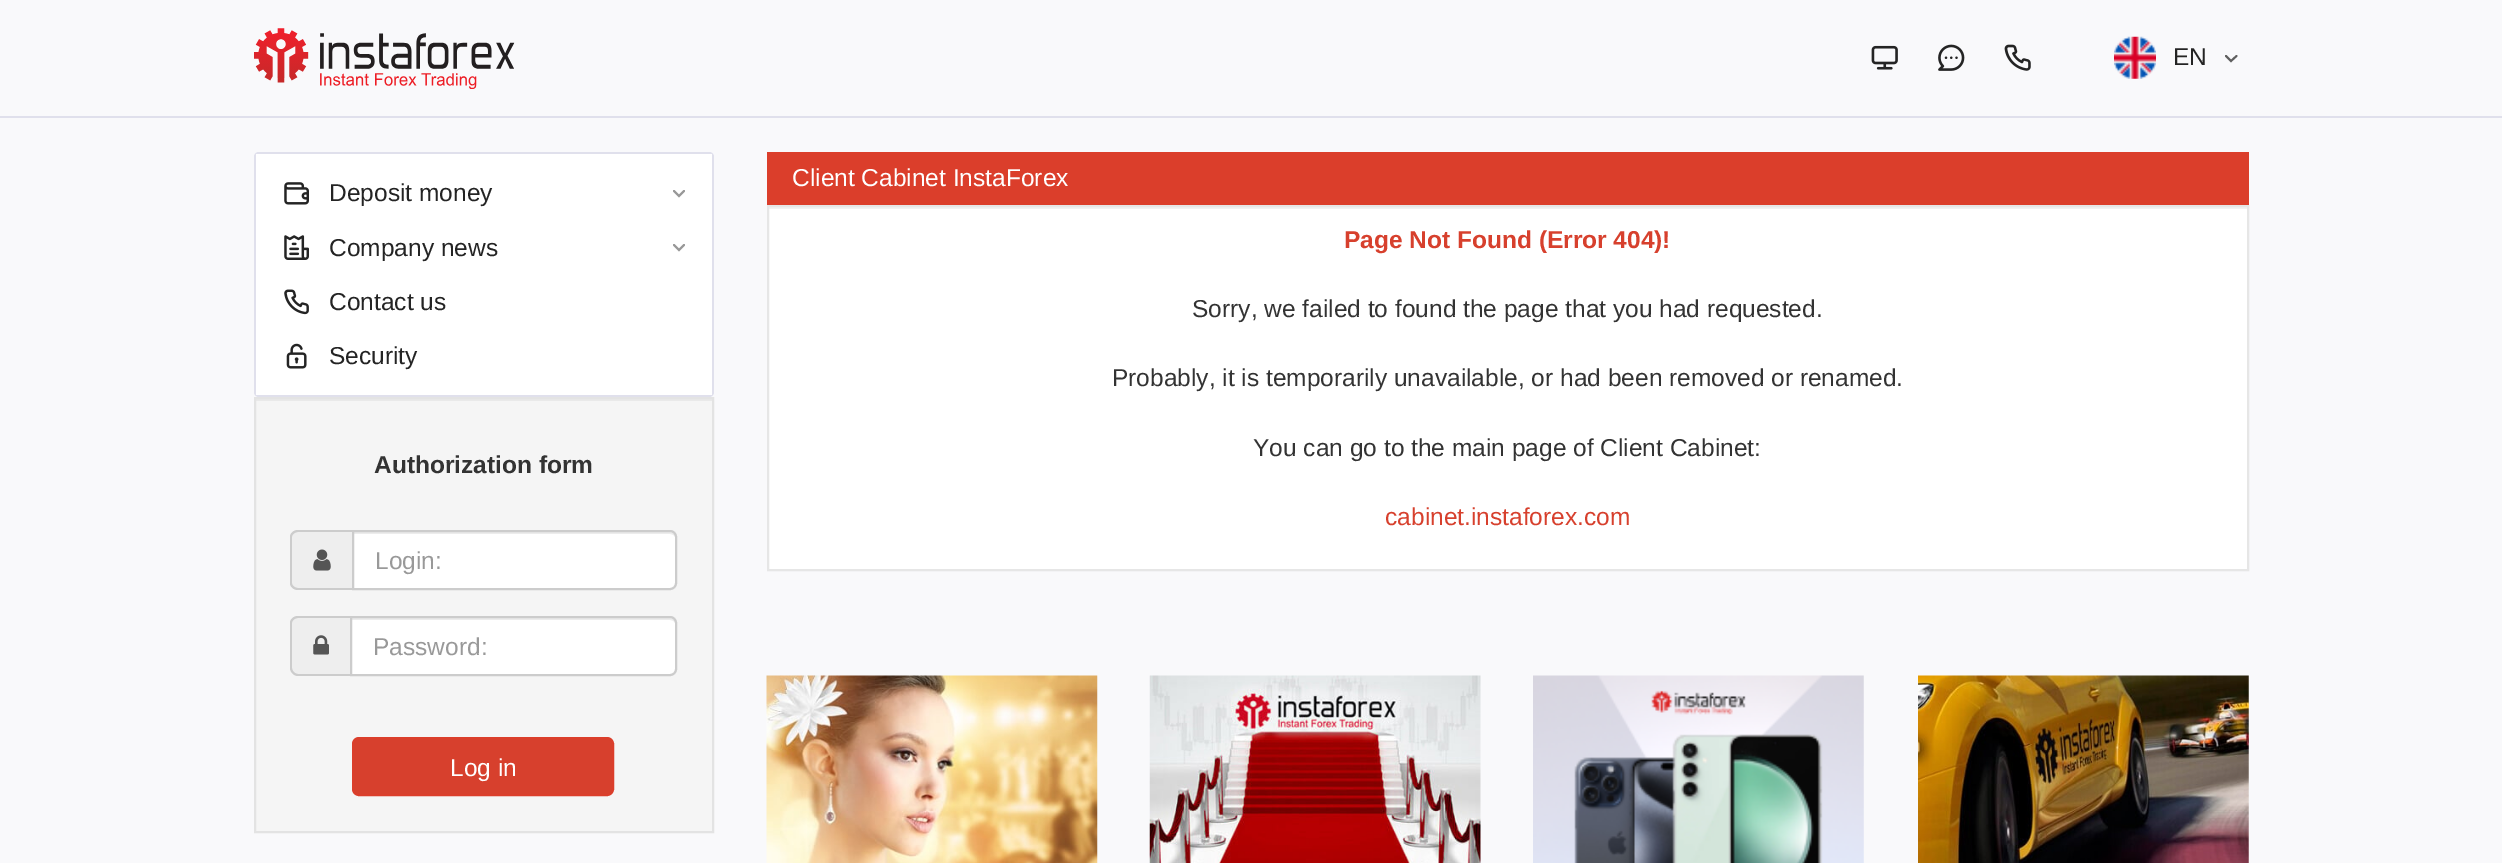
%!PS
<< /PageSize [2502 863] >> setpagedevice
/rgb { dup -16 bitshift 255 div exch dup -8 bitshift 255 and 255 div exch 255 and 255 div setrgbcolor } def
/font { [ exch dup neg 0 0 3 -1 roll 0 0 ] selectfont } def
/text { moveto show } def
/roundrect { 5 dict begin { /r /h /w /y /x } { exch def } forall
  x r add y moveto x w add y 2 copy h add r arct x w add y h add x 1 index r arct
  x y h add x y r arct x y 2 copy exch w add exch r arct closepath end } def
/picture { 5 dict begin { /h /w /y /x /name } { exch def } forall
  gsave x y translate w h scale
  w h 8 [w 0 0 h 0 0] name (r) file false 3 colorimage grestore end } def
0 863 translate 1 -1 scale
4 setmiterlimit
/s1 { /LiberationSans-Regular 24.5 font 16#242424 rgb } def
/s2 { /LiberationSans-Bold 24.5 font 16#333333 rgb } def
/s3 { /LiberationSans-Regular 24.5 font 16#999999 rgb } def
/s4 { /LiberationSans-Regular 24.5 font 16#FFFFFF rgb } def
/s5 { /LiberationSans-Bold 24.5 font 16#D7402D rgb } def
/s6 { /LiberationSans-Regular 24.5 font 16#333333 rgb } def
/s7 { /LiberationSans-Regular 24.5 font 16#D7402D rgb } def
16#F9F9FB rgb
0 0 2502 863 rectfill
16#E0E0EC rgb
0 116 2502 2 rectfill
(pic1.raw) 254 28 261 61 picture
(pic2.raw) 1871 45 27 25 picture
(pic3.raw) 1938 44 27 27 picture
(pic4.raw) 2004 44 27 27 picture
(pic5.raw) 2114 36 42 43 picture
s1
(EN) 2173 65 text
16#5F5F5F rgb
1.9 setlinewidth
1 setlinecap
2236.5 56 moveto 2231 61 lineto 2226 56 lineto stroke
16#FFFFFF rgb
254 152 460 245 5 roundrect fill
16#E0E0EC rgb
259 152 moveto 256 152 254 154 254 157 curveto 254 392 lineto 254 395 256 397 259 397 curveto 709 397 lineto 712 397 714 395 714 392 curveto 714 157 lineto 714 154 712 152 709 152 curveto closepath 256 154 moveto 256 395 lineto 712 395 lineto 712 154 lineto closepath eofill
(pic6.raw) 284 182 25 23 picture
s1
(Deposit money) 329 201 text
16#989898 rgb
684 191 moveto 679 196 lineto 674 191 lineto stroke
(pic7.raw) 284 235 25 25 picture
s1
(Company news) 329 256 text
16#989898 rgb
684 245 moveto 679 250 lineto 674 245 lineto stroke
(pic8.raw) 284 289 25 26 picture
s1
(Contact us) 329 310 text
(pic9.raw) 286 343 21 26 picture
(Security) 329 364 text
16#F5F5F5 rgb
256 401 456 430 rectfill
16#E9E9E9 rgb
256 399 456 2 rectfill
16#E3E3E3 rgb
2 setlinewidth
0 setlinecap
255 398 458 434 rectstroke
s2
(Authorization form) 374 473 text
16#EEEEEE rgb
298 530 moveto 352 530 lineto 352 590 lineto 298 590 lineto 294 590 291 587 291 583 curveto 291 537 lineto 291 533 294 530 298 530 curveto closepath fill
16#CCCCCC rgb
298 530 moveto 352 530 lineto 352 590 lineto 298 590 lineto 294 590 290 587 290 583 curveto 290 537 lineto 290 533 294 530 298 530 curveto closepath 298 532 moveto 352 532 lineto 352 588 lineto 298 588 lineto 295 588 292 586 292 583 curveto 292 537 lineto 292 534 295 532 298 532 curveto closepath eofill
(pic10.raw) 313 549 18 22 picture
16#FFFFFF rgb
352 530 moveto 670 530 lineto 674 530 677 533 677 537 curveto 677 583 lineto 677 587 674 590 670 590 curveto 352 590 lineto closepath fill
16#ECECEC rgb
354 534 moveto 670 534 lineto 673 534 676 536 676 539 curveto 676 537 lineto 676 534 674 532 671 532 curveto 354 532 lineto closepath fill
16#CCCCCC rgb
353 531 moveto 670 531 lineto 673.5 531 676 533.5 676 537 curveto 676 583 lineto 676 586.5 673.5 589 670 589 curveto 353 589 lineto closepath stroke
s3
(Login:) 375 569 text
16#EEEEEE rgb
298 616 moveto 350 616 lineto 350 676 lineto 298 676 lineto 294 676 291 673 291 669 curveto 291 623 lineto 291 619 294 616 298 616 curveto closepath fill
16#CCCCCC rgb
298 616 moveto 350 616 lineto 350 676 lineto 298 676 lineto 294 676 290 672 290 668 curveto 290 623 lineto 290 619 294 616 298 616 curveto closepath 298 618 moveto 350 618 lineto 350 674 lineto 298 674 lineto 295 674 292 671 292 668 curveto 292 623 lineto 292 620 295 618 298 618 curveto closepath eofill
(pic11.raw) 313 635 16 20 picture
16#FFFFFF rgb
350 616 moveto 670 616 lineto 674 616 677 619 677 623 curveto 677 669 lineto 677 673 674 676 670 676 curveto 350 676 lineto closepath fill
16#ECECEC rgb
352 620 moveto 670 620 lineto 673 620 676 622 676 625 curveto 676 623 lineto 676 620 674 618 671 618 curveto 352 618 lineto closepath fill
16#CCCCCC rgb
351 617 moveto 670 617 lineto 673.5 617 676 619.5 676 623 curveto 676 669 lineto 676 672.5 673.5 675 670 675 curveto 351 675 lineto closepath stroke
s3
(Password:) 373 655 text
16#D7402D rgb
353 738 260 57 6 roundrect gsave fill grestore
16#DB3E2B rgb
stroke
s4
(Log in) 450 776 text
16#DB3E2B rgb
767 152 1482 53 rectfill
s4
(Client Cabinet InstaForex) 792 186 text
769 209 1478 360 rectfill
16#F2F2F2 rgb
768 207 1479 2 rectfill
16#E6E6E6 rgb
768 206 1480 364 rectstroke
s5
(Page Not Found \(Error 404\)!) 1344 248 text
s6
(Sorry, we failed to found the page that you had requested.) 1192 317 text
(Probably, it is temporarily unavailable, or had been removed or renamed.) 1112 386 text
(You can go to the main page of Client Cabinet:) 1253 456 text
s7
(cabinet.instaforex.com) 1385 525 text
(pic12.raw) 766 675 332 188 picture
(pic13.raw) 1149 675 332 188 picture
(pic14.raw) 1533 675 331 188 picture
(pic15.raw) 1918 675 331 188 picture
showpage
